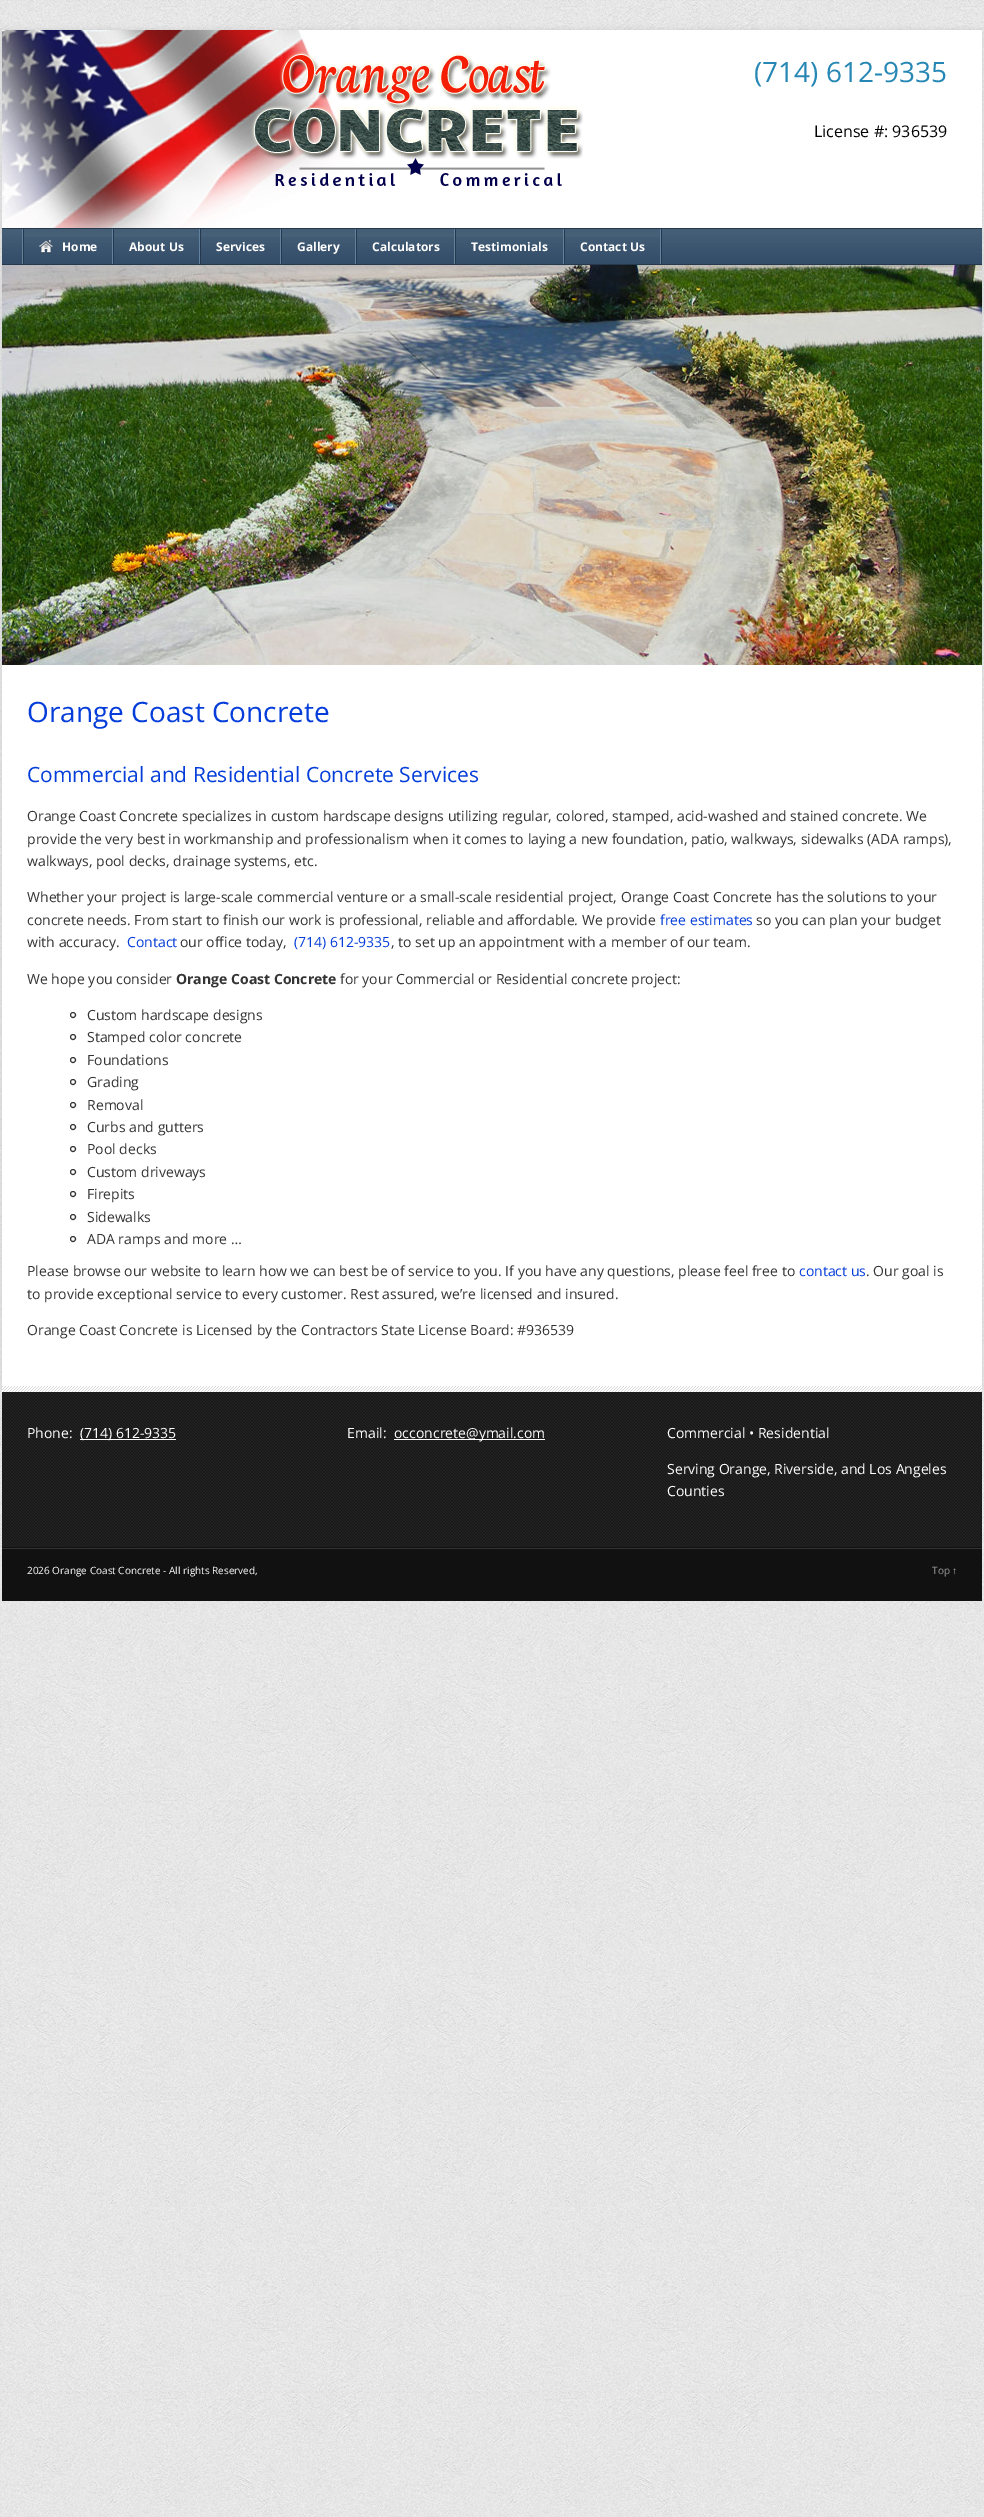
%!PS
<< /PageSize [984 2517] /PageUsesTransparency true >> setpagedevice
/rgb { dup -16 bitshift 255 div exch dup -8 bitshift 255 and 255 div exch 255 and 255 div setrgbcolor } def
/font { [ exch dup neg 0 0 3 -1 roll 0 0 ] selectfont } def
/text { moveto show } def
/alpha { dup .setfillconstantalpha .setstrokeconstantalpha } def
/circle { newpath 0 360 arc closepath } def
/roundrect { 5 dict begin { /r /h /w /y /x } { exch def } forall
  x r add y moveto x w add y 2 copy h add r arct x w add y h add x 1 index r arct
  x y h add x y r arct x y 2 copy exch w add exch r arct closepath end } def
/shadow { 12 dict begin { /a /b /q /h /w /y /x } { exch def } forall gsave /was 0 def
  9 -2 -9 { dup b mul 4 div /e exch def 1 sub .425 mul 2.718 exch exp 1 add a .99 .min exch div /now exch def
    1 1 now sub 1 was sub div sub alpha /was now def
    w h .min e 2 mul add 0 gt { x e sub y e sub w e 2 mul add h e 2 mul add
      q e add b .6 mul add w h .min 2 div e add .min 0 .max roundrect fill } if } for grestore end } def
/picture { 5 dict begin { /h /w /y /x /name } { exch def } forall
  gsave x y translate w h scale
  w h 8 [w 0 0 h 0 0] name (r) file false 3 colorimage grestore end } def
0 .pushpdf14devicefilter
0 2517 translate 1 -1 scale
4 setmiterlimit
/s1 { /OpenSans-Regular 28 font 16#2687B4 rgb } def
/s2 { /OpenSans-Regular 16 font 16#000000 rgb } def
/s3 { /OpenSans-Bold 12 font 16#FFFFFF rgb } def
/s4 { /OpenSans-Regular 28 font 16#043DD9 rgb } def
/s5 { /OpenSans-Regular 21 font 16#043DD9 rgb } def
/s6 { /OpenSans-Regular 14 font 16#333333 rgb } def
/s7 { /OpenSans-Regular 14 font 16#043DD9 rgb } def
/s8 { /OpenSans-Bold 14 font 16#333333 rgb } def
/s9 { /OpenSans-Regular 14 font 16#FFFFFF rgb } def
/s10 { /OpenSans-Regular 10 font 16#FFFFFF rgb } def
/s11 { /OpenSans-Regular 10 font 16#999999 rgb } def
/s12 { /LiberationSerif-Regular 10 font 16#999999 rgb } def
16#FFFFFF rgb
0 0 984 2517 rectfill
(pic1.raw) 0 0 984 2517 picture
16#000000 rgb
2 30 980 1356 0 3 0.1 shadow
16#FFFFFF rgb
2 30 980 1362 rectfill
(pic2.raw) 2 30 581 198 picture
s1
(\(714\) 612-9335) 754 82 text
s2
(License #: 936539) 814 137 text
(pic3.raw) 2 229 980 35 picture
16#26384C rgb
2 228 980 1 rectfill
2 264 980 1 rectfill
661 229 1 35 rectfill
16#6381A1 rgb
22 229 1 35 rectfill
16#466078 rgb
24 233 88 4 rectfill
(pic4.raw) 24 237 88 27 picture
16#6381A1 rgb
112 229 1 35 rectfill
16#26384C rgb
23 229 1 35 rectfill
(pic5.raw) 38 240 15 14 picture
s3
(Home) 62 251 text
16#466078 rgb
114 233 85 4 rectfill
(pic6.raw) 114 237 85 27 picture
16#6381A1 rgb
199 229 1 35 rectfill
16#26384C rgb
113 229 1 35 rectfill
s3
(About Us) 129 251 text
16#466078 rgb
201 233 79 4 rectfill
(pic7.raw) 201 237 79 27 picture
16#6381A1 rgb
280 229 1 35 rectfill
16#26384C rgb
200 229 1 35 rectfill
s3
(Services) 216 251 text
16#466078 rgb
282 233 73 4 rectfill
(pic8.raw) 282 237 73 27 picture
16#6381A1 rgb
355 229 1 35 rectfill
16#26384C rgb
281 229 1 35 rectfill
s3
(Gallery) 297 251 text
16#466078 rgb
357 233 97 4 rectfill
(pic9.raw) 357 237 97 27 picture
16#6381A1 rgb
454 229 1 35 rectfill
16#26384C rgb
356 229 1 35 rectfill
s3
(Calculators) 372 251 text
16#466078 rgb
456 233 107 4 rectfill
(pic10.raw) 456 237 107 27 picture
16#6381A1 rgb
563 229 1 35 rectfill
16#26384C rgb
455 229 1 35 rectfill
s3
(Testimonials) 471 251 text
16#466078 rgb
565 233 95 4 rectfill
(pic11.raw) 565 237 95 27 picture
16#6381A1 rgb
660 229 1 35 rectfill
16#26384C rgb
564 229 1 35 rectfill
s3
(Contact Us) 580 251 text
(pic12.raw) 2 265 980 400 picture
s4
(Orange Coast Concrete) 27 722 text
s5
(Commercial and Residential Concrete Services) 27 782 text
s6
(Orange Coast Concrete specializes in custom hardscape designs utilizing regular, colored, stamped, acid-washed and stained concrete. We) 27 821 text
(provide the very best in workmanship and professionalism when it comes to laying a new foundation, patio, walkways, sidewalks \(ADA ramps\),) 27 844 text
(walkways, pool decks, drainage systems, etc.) 27 866 text
(Whether your project is large-scale commercial venture or a small-scale residential project, Orange Coast Concrete has the solutions to your) 27 902 text
(concrete needs. From start to finish our work is professional, reliable and affordable. We provide) 27 925 text
s7
(free estimates) 660 925 text
s6
(so you can plan your budget) 756 925 text
(with accuracy.) 27 947 text
s7
(Contact) 127 947 text
s6
(our office today,) 180 947 text
s7
(\(714\) 612-9335) 294 947 text
s6
(, to set up an appointment with a member of our team.) 391 947 text
(We hope you consider) 27 984 text
s8
(Orange Coast Concrete) 176 984 text
s6
(for your Commercial or Residential concrete project:) 340 984 text
73 1015 2.5 circle stroke
(Custom hardscape designs) 87 1020 text
73 1037 2.5 circle stroke
(Stamped color concrete) 87 1042 text
73 1060 2.5 circle stroke
(Foundations) 87 1065 text
73 1082 2.5 circle stroke
(Grading) 87 1087 text
73 1105 2.5 circle stroke
(Removal) 87 1110 text
73 1127 2.5 circle stroke
(Curbs and gutters) 87 1132 text
73 1149 2.5 circle stroke
(Pool decks) 87 1154 text
73 1172 2.5 circle stroke
(Custom driveways) 87 1177 text
73 1194 2.5 circle stroke
(Firepits) 87 1199 text
73 1217 2.5 circle stroke
(Sidewalks) 87 1222 text
73 1239 2.5 circle stroke
(ADA ramps and more …) 87 1244 text
(Please browse our website to learn how we can best be of service to you. If you have any questions, please feel free to) 27 1276 text
s7
(contact us) 799 1276 text
s6
(. Our goal is) 866 1276 text
(to provide exceptional service to every customer. Rest assured, we’re licensed and insured.) 27 1299 text
(Orange Coast Concrete is Licensed by the Contractors State License Board: #936539) 27 1335 text
(pic13.raw) 2 1386 980 6 picture
16#212121 rgb
2 1392 980 155 rectfill
(pic14.raw) 2 1392 980 155 picture
16#111111 rgb
2 1547 980 1 rectfill
s9
(Phone:) 27 1438 text
80 1439 96 1 rectfill
(\(714\) 612-9335) 80 1438 text
(Email:) 347 1438 text
394 1439 151 1 rectfill
(occoncrete@ymail.com) 394 1438 text
(Commercial • Residential) 667 1438 text
(Serving Orange, Riverside, and Los Angeles) 667 1474 text
(Counties) 667 1496 text
16#111111 rgb
2 1549 980 52 rectfill
16#333333 rgb
2 1548 980 1 rectfill
s10
(2026 Orange Coast Concrete - All rights Reserved,) 27 1574 text
s11
(Top) 932 1574 text
s12
(↑) 952 1574 text
.poppdf14devicefilter showpage
